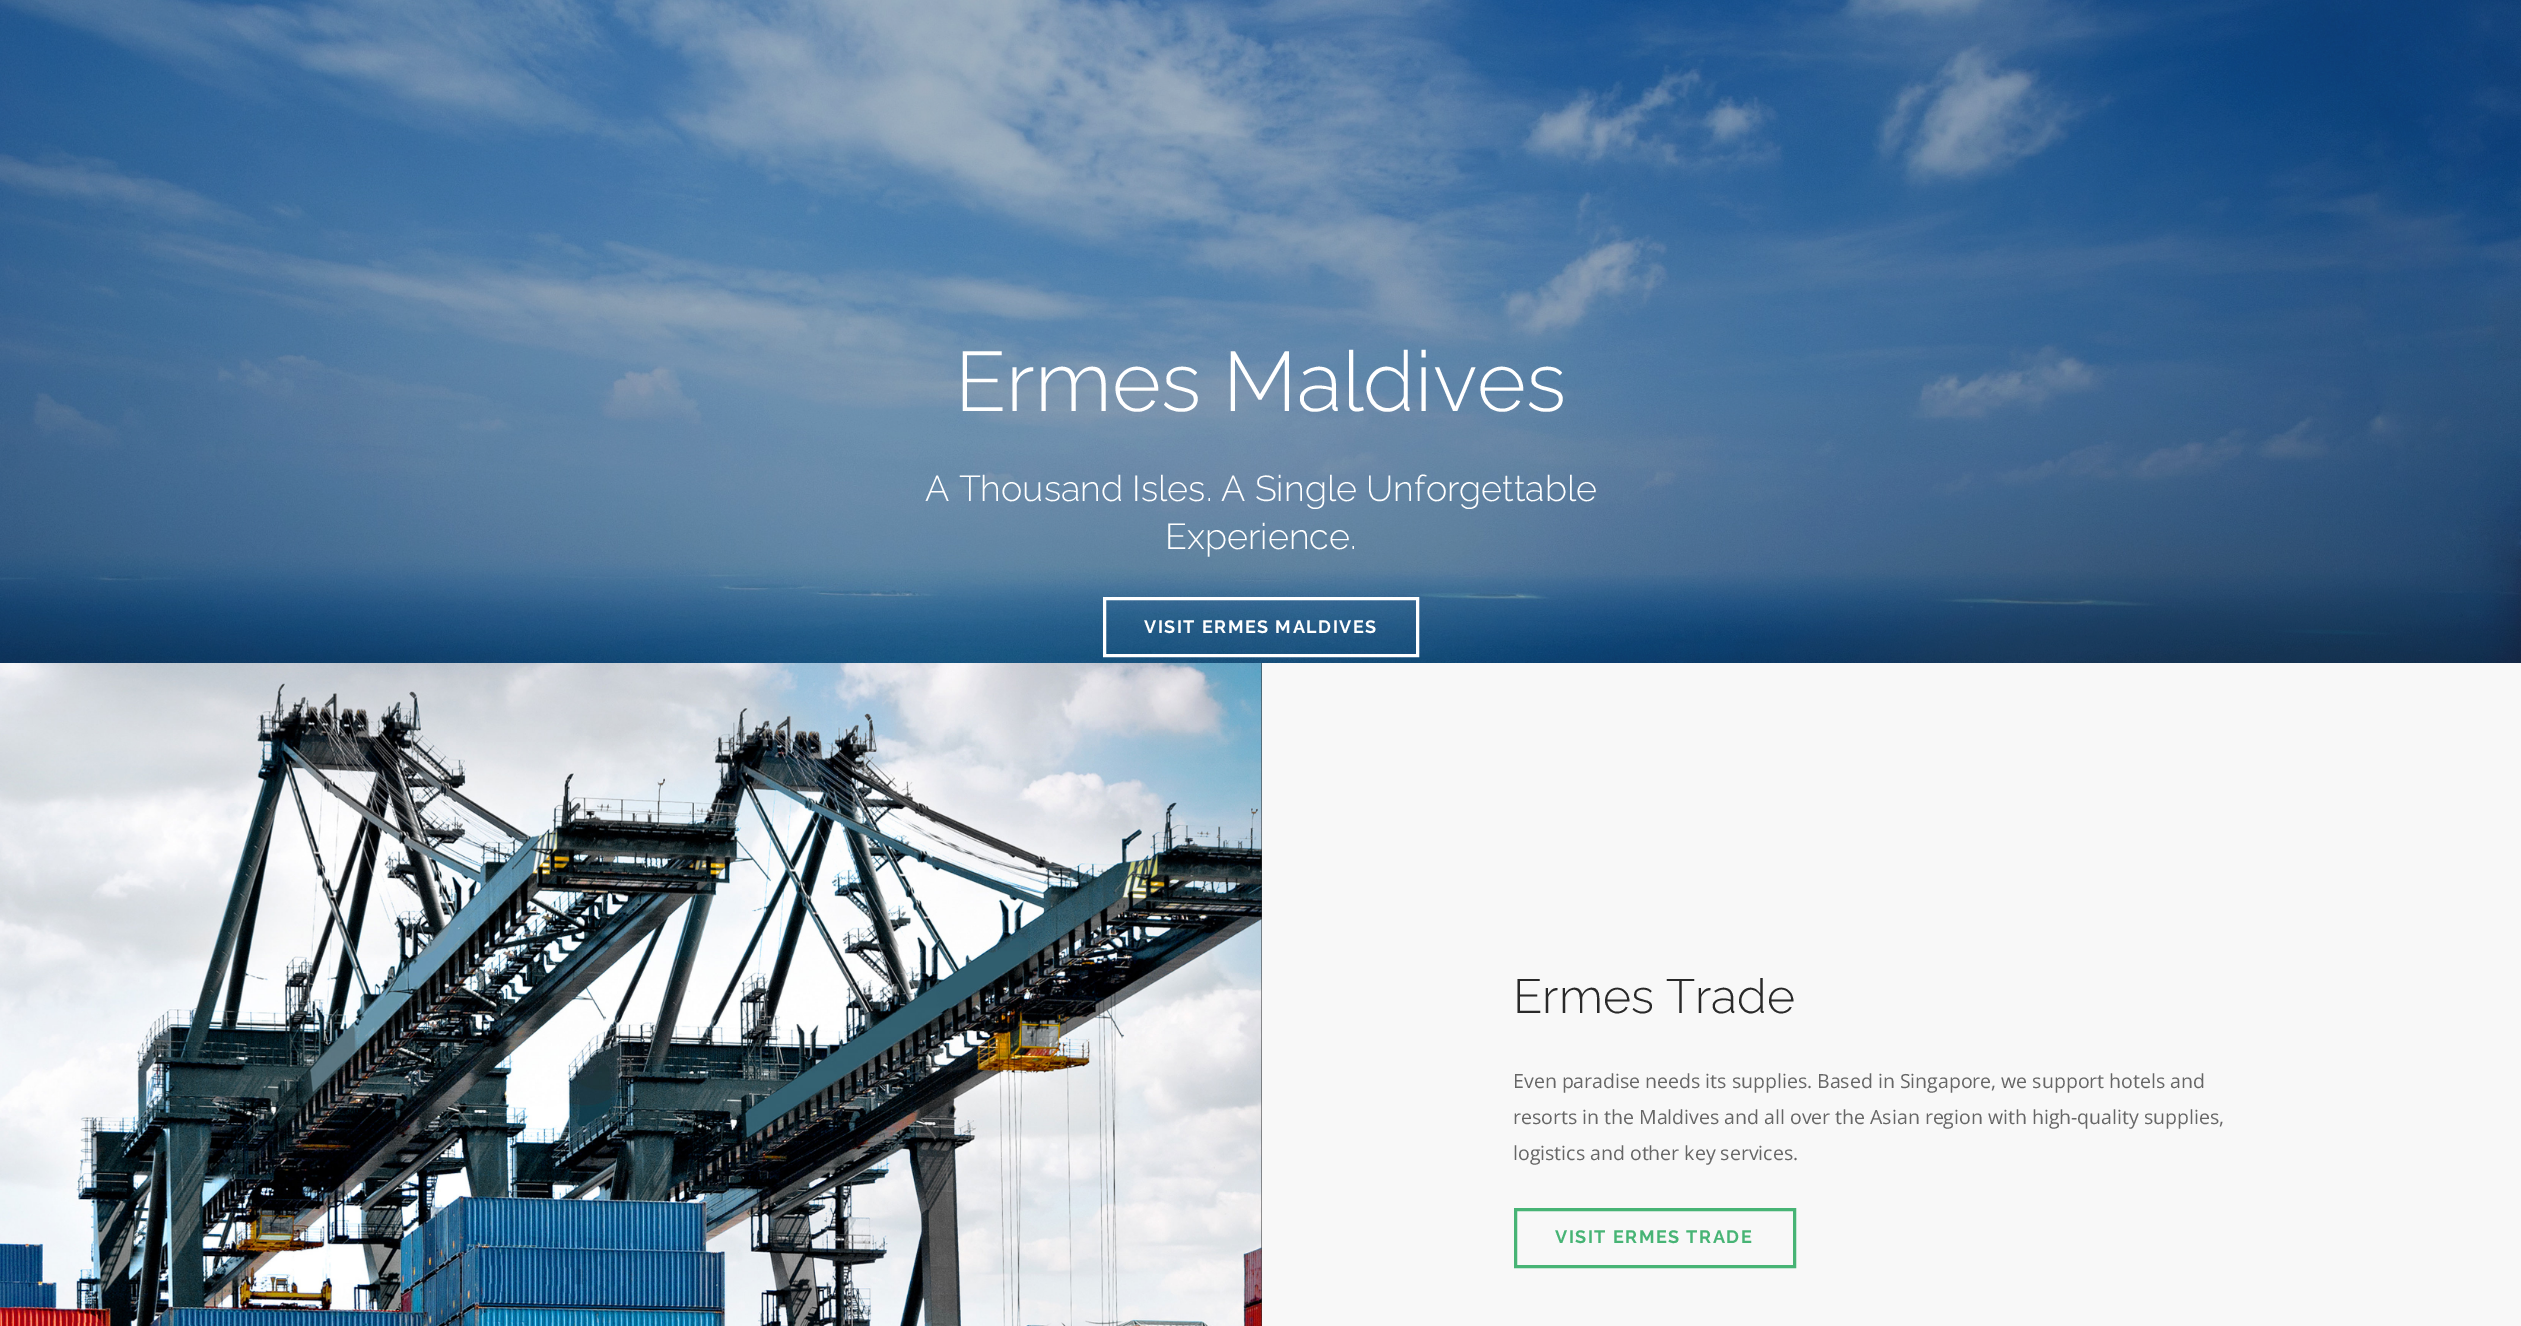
%!PS
<< /PageSize [2521 1326] >> setpagedevice
/rgb { dup -16 bitshift 255 div exch dup -8 bitshift 255 and 255 div exch 255 and 255 div setrgbcolor } def
/font { [ exch dup neg 0 0 3 -1 roll 0 0 ] selectfont } def
/text { moveto show } def
/picture { 5 dict begin { /h /w /y /x /name } { exch def } forall
  gsave x y translate w h scale
  w h 8 [w 0 0 h 0 0] name (r) file false 3 colorimage grestore end } def
0 1326 translate 1 -1 scale
4 setmiterlimit
/s1 { /Raleway-Light 84 font 16#FFFFFF rgb } def
/s2 { /Raleway-Light 36 font 16#FFFFFF rgb } def
/s3 { /Raleway-Light 48 font 16#292929 rgb } def
/s4 { /OpenSans-Regular 19.5 font 16#666666 rgb } def
16#F8F8F8 rgb
0 0 2521 1326 rectfill
(pic1.raw) 0 0 2521 663 picture
s1
(Ermes Maldives) 955 411 text
s2
(A Thousand Isles. A Single Unforgettable) 925 501 text
(Experience.) 1165 549 text
3 setlinewidth
1104.5 598.5 313 57 rectstroke
/Raleway-Bold 18 font
1144 633 moveto 1.5 0 (VISIT ERMES MALDIVES) ashow
16#292929 rgb
1261 663 1 663 rectfill
(pic2.raw) 0 663 1262 663 picture
s3
(Ermes Trade) 1513 1013 text
s4
(Even paradise needs its supplies. Based in Singapore, we support hotels and) 1513 1088 text
(resorts in the Maldives and all over the Asian region with high-quality supplies,) 1513 1124 text
(logistics and other key services.) 1513 1160 text
16#47B475 rgb
1515.5 1209.5 279 57 rectstroke
/Raleway-Bold 18 font
1555 1243 moveto 1.5 0 (VISIT ERMES TRADE) ashow
showpage
